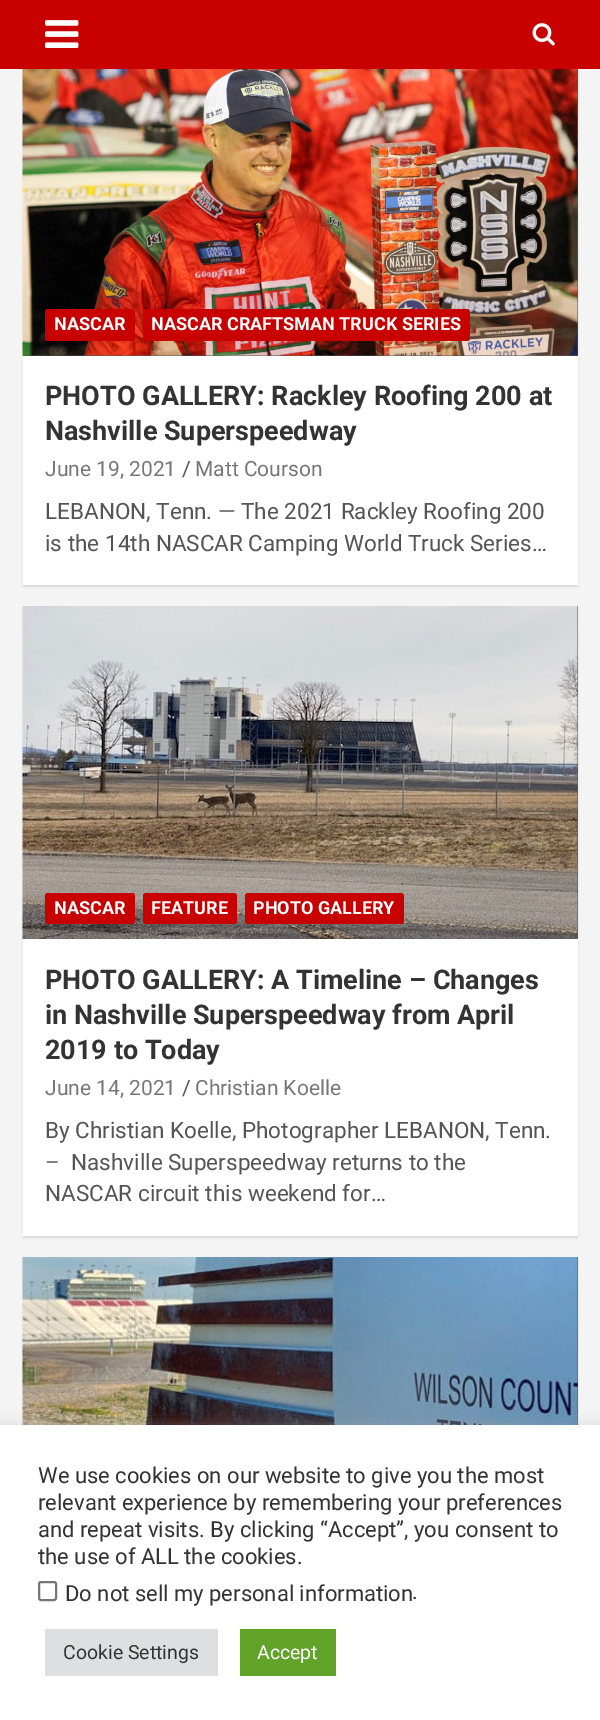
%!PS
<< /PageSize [600 1720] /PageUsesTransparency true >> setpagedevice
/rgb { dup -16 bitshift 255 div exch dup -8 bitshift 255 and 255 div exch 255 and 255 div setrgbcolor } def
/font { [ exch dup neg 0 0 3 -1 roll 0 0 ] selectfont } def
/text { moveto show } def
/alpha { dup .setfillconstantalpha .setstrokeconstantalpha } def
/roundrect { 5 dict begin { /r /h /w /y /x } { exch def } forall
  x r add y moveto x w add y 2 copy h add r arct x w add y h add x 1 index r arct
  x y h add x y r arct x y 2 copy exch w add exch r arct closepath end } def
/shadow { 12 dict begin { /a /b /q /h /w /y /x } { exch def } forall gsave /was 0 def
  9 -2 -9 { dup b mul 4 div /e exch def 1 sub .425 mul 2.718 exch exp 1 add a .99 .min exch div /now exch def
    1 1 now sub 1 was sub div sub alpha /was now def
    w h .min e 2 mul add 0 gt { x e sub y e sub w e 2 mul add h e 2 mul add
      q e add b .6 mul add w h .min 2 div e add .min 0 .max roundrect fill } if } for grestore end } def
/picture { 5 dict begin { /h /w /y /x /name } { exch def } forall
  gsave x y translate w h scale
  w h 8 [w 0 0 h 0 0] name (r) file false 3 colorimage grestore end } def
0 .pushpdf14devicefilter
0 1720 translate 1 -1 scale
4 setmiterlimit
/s1 { /Roboto-Bold 18 font 16#FFFFFF rgb } def
/s2 { /Roboto-Bold 27 font 16#333333 rgb } def
/s3 { /Roboto-Regular 21 font 16#777777 rgb } def
/s4 { /Roboto-Regular 21 font 16#555555 rgb } def
/s5 { /Roboto-Regular 22.5 font 16#555555 rgb } def
/s6 { /Roboto-Regular 22 font 16#333333 rgb } def
/s7 { /Roboto-Regular 19.5 font 16#333333 rgb } def
/s8 { /Roboto-Regular 19.5 font 16#FFFFFF rgb } def
16#F4F4F4 rgb
0 0 600 1720 rectfill
16#000000 rgb
23 24 555 563 0 1 0.1 shadow
16#C80000 rgb
0 0 600 69 rectfill
(pic1.raw) 45 20 34 28 picture
(pic2.raw) 532 23 23 23 picture
16#FFFFFF rgb
23 356 555 229 rectfill
16#555555 rgb
23 69 555 287 rectfill
(pic3.raw) 22 69 556 287 picture
16#C80000 rgb
45 309 90 32 3 roundrect fill
s1
(NASCAR) 54 330 text
16#C80000 rgb
143 309 327 32 3 roundrect fill
s1
(NASCAR CRAFTSMAN TRUCK SERIES) 151 330 text
s2
(PHOTO GALLERY: Rackley Roofing 200 at) 45 405 text
(Nashville Superspeedway) 45 440 text
s3
(June 19, 2021) 45 476 text
s4
(/) 182 476 text
s3
(Matt Courson) 195 476 text
s5
(LEBANON, Tenn. — The 2021 Rackley Roofing 200) 45 519 text
(is the 14th NASCAR Camping World Truck Series…) 45 551 text
16#000000 rgb
23 608 555 630 0 1 0.1 shadow
16#FFFFFF rgb
23 939 555 297 rectfill
16#555555 rgb
577 606 1 333 rectfill
(pic4.raw) 22 606 556 333 picture
16#C80000 rgb
45 893 90 31 3 roundrect fill
s1
(NASCAR) 54 914 text
16#C80000 rgb
143 893 94 31 3 roundrect fill
s1
(FEATURE) 151 914 text
16#C80000 rgb
245 893 159 31 3 roundrect fill
s1
(PHOTO GALLERY) 253 914 text
s2
(PHOTO GALLERY: A Timeline – Changes) 45 989 text
(in Nashville Superspeedway from April) 45 1024 text
(2019 to Today) 45 1059 text
s3
(June 14, 2021) 45 1095 text
s4
(/) 182 1095 text
s3
(Christian Koelle) 195 1095 text
s5
(By Christian Koelle, Photographer LEBANON, Tenn.) 45 1138 text
(–  Nashville Superspeedway returns to the) 45 1170 text
(NASCAR circuit this weekend for…) 45 1201 text
16#000000 rgb
23 1259 555 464 0 1 0.1 shadow
16#555555 rgb
577 1257 1 168 rectfill
(pic5.raw) 22 1257 556 168 picture
16#ACABAB rgb
0 1424 600 295 0 7.5 0.3 shadow
16#FFFFFF rgb
0 1425 600 295 rectfill
s6
(We use cookies on our website to give you the most) 38 1483 text
(relevant experience by remembering your preferences) 38 1510 text
(and repeat visits. By clicking “Accept”, you consent to) 38 1537 text
(the use of ALL the cookies.) 38 1564 text
16#767676 rgb
2 setlinewidth
39 1582 17 18 2 roundrect stroke
s6
(Do not sell my personal information) 65 1601 text
(.) 412 1599 text
16#DEDFE0 rgb
45 1629 173 47 rectfill
s7
(Cookie Settings) 63 1659 text
16#61A229 rgb
240 1629 96 47 rectfill
s8
(Accept) 257 1659 text
.poppdf14devicefilter showpage
